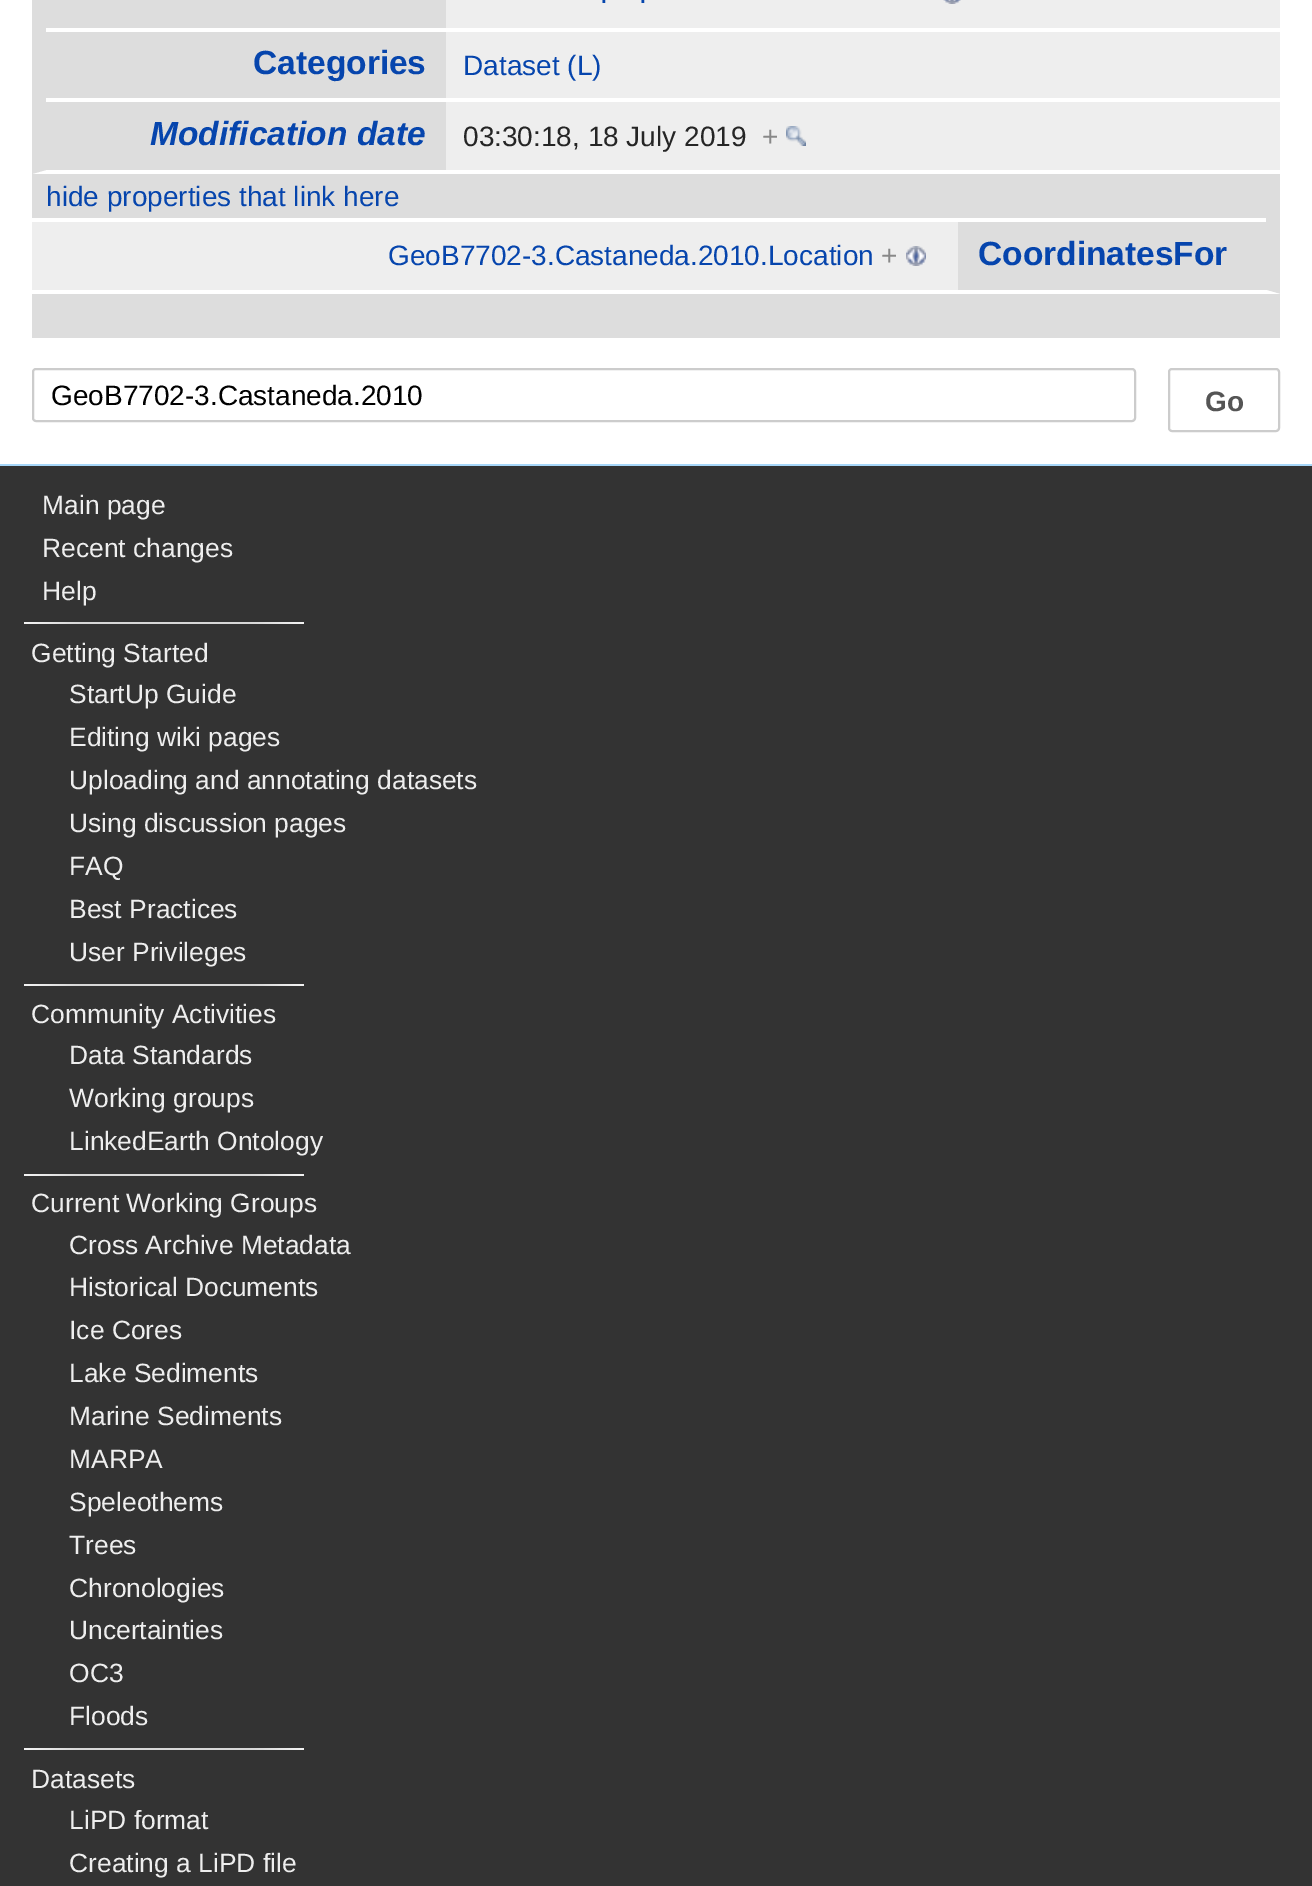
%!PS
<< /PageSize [1312 1886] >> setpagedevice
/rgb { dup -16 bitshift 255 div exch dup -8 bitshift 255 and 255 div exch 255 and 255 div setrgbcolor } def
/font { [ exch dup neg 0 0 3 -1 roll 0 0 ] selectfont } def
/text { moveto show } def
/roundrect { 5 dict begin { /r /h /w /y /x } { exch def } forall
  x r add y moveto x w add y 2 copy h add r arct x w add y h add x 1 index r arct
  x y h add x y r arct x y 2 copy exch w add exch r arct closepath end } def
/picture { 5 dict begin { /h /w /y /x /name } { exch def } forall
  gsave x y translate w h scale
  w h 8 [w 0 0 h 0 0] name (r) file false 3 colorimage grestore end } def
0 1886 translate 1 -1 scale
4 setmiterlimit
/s1 { /LiberationSans-Regular 28 font 16#0645AD rgb } def
/s2 { /LiberationSans-Bold 33.5 font 16#0645AD rgb } def
/s3 { /LiberationSans-BoldItalic 33.5 font 16#0645AD rgb } def
/s4 { /LiberationSans-Regular 28 font 16#252525 rgb } def
/s5 { /LiberationSans-Regular 28 font 16#888888 rgb } def
/s6 { /LiberationSans-Regular 28 font 16#000000 rgb } def
/s7 { /LiberationSans-Bold 28 font 16#555555 rgb } def
/s8 { /LiberationSans-Regular 26.4 font 16#EEEEEE rgb } def
16#FFFFFF rgb
0 0 1312 1886 rectfill
16#A7D7F9 rgb
0 464 1312 2 rectfill
16#DDDDDD rgb
32 174 moveto 32 -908 lineto 46 -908 lineto 46 170 lineto closepath fill
16#EEEEEE rgb
446 0 834 28 rectfill
16#DDDDDD rgb
46 0 400 28 rectfill
s1
(.) 600 3 text
(.) 639 3 text
(pic1.raw) 943 0 18 4 picture
16#EEEEEE rgb
446 32 834 66 rectfill
16#DDDDDD rgb
46 32 400 66 rectfill
s2
(Categories) 253 74 text
s1
(Dataset \(L\)) 463 75 text
16#EEEEEE rgb
446 102 834 68 rectfill
16#DDDDDD rgb
46 102 400 68 rectfill
s3
(Modification date) 150 145 text
s4
(03:30:18, 18 July 2019) 463 146 text
s5
(+) 762 146 text
(pic2.raw) 786 126 20 20 picture
16#DDDDDD rgb
32 174 1248 44 rectfill
s1
(hide properties that link here) 46 206 text
16#DDDDDD rgb
1280 218 moveto 1280 294 lineto 1266 290 lineto 1266 218 lineto closepath fill
16#FFFFFF rgb
1280 294 moveto 32 294 lineto 32 290 lineto 1266 290 lineto closepath fill
16#EEEEEE rgb
32 222 926 68 rectfill
s1
(GeoB7702-3.Castaneda.2010.Location) 388 265 text
s5
(+) 881 265 text
(pic3.raw) 906 246 20 20 picture
16#DDDDDD rgb
958 222 308 68 rectfill
s2
(CoordinatesFor) 978 265 text
16#DDDDDD rgb
32 294 1248 44 rectfill
16#CCCCCC rgb
2 setlinewidth
33 369 1102 52 3 roundrect stroke
s6
(GeoB7702-3.Castaneda.2010) 51 405 text
16#CCCCCC rgb
1169 369 110 62 3 roundrect stroke
s7
(Go) 1205 411 text
16#333333 rgb
0 466 1312 1420 rectfill
s8
(Main page) 42 514 text
(Recent changes) 42 557 text
(Help) 42 600 text
(pic4.raw) 24 622 280 2 picture
(Getting Started) 31 662 text
(StartUp Guide) 69 703 text
(Editing wiki pages) 69 746 text
(Uploading and annotating datasets) 69 789 text
(Using discussion pages) 69 832 text
(FAQ) 69 875 text
(Best Practices) 69 918 text
(User Privileges) 69 961 text
(pic4.raw) 24 984 280 2 picture
(Community Activities) 31 1023 text
(Data Standards) 69 1064 text
(Working groups) 69 1107 text
(LinkedEarth Ontology) 69 1150 text
(pic4.raw) 24 1174 280 2 picture
(Current Working Groups) 31 1212 text
(Cross Archive Metadata) 69 1254 text
(Historical Documents) 69 1296 text
(Ice Cores) 69 1339 text
(Lake Sediments) 69 1382 text
(Marine Sediments) 69 1425 text
(MARPA) 69 1468 text
(Speleothems) 69 1511 text
(Trees) 69 1554 text
(Chronologies) 69 1597 text
(Uncertainties) 69 1639 text
(OC3) 69 1682 text
(Floods) 69 1725 text
(pic4.raw) 24 1748 280 2 picture
(Datasets) 31 1788 text
(LiPD format) 69 1829 text
(Creating a LiPD file) 69 1872 text
showpage
